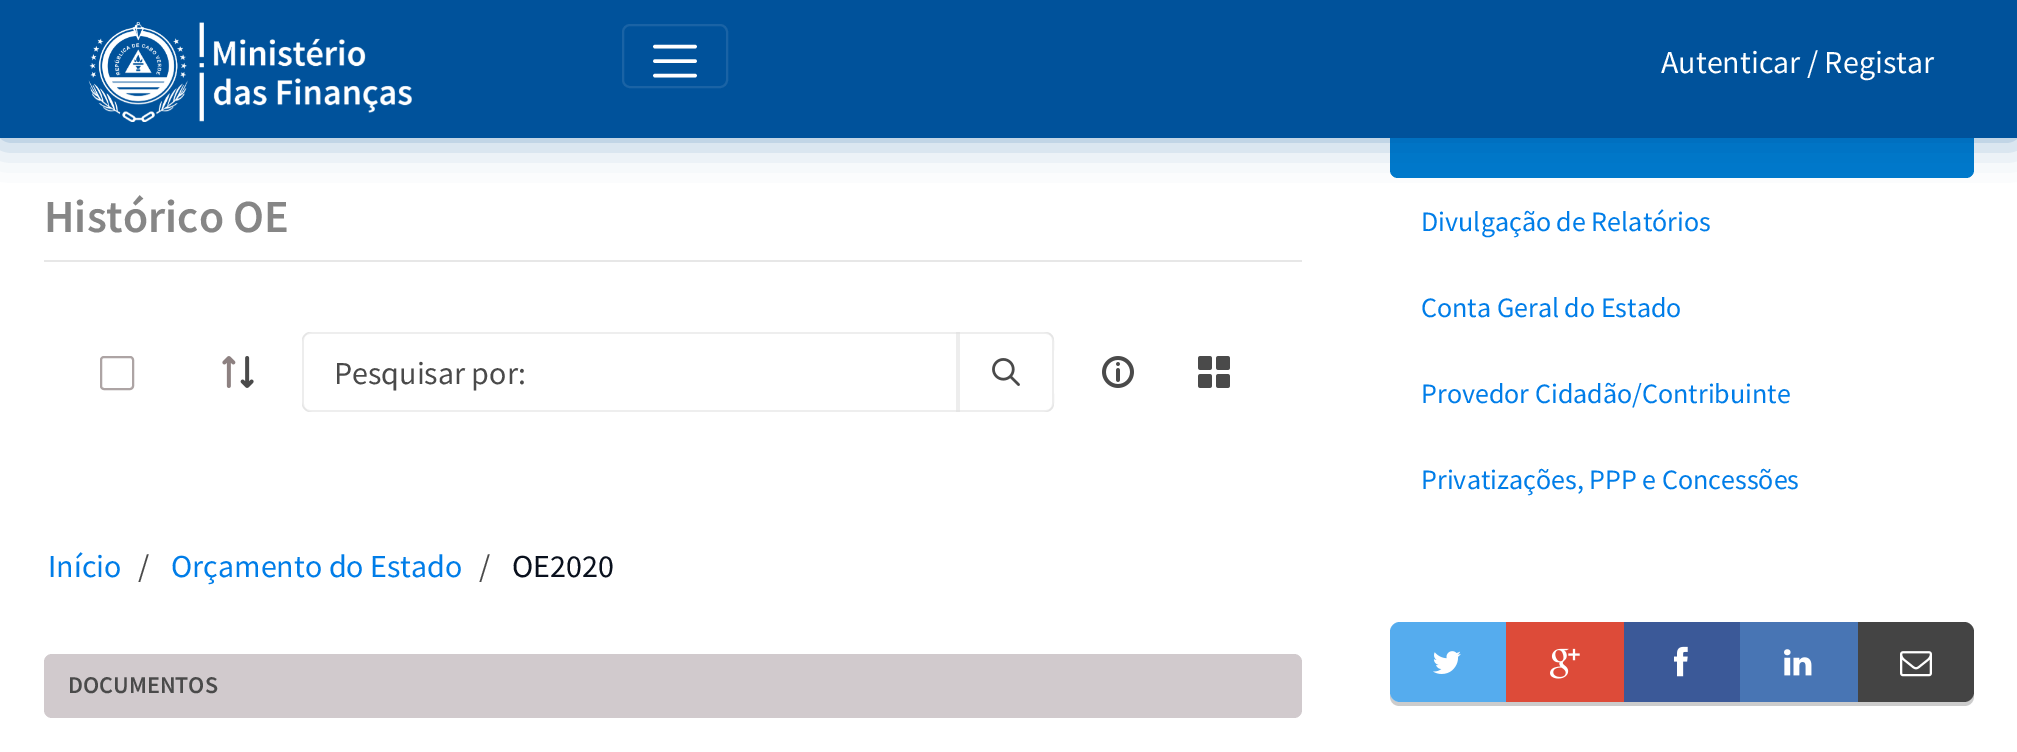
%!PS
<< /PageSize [2017 752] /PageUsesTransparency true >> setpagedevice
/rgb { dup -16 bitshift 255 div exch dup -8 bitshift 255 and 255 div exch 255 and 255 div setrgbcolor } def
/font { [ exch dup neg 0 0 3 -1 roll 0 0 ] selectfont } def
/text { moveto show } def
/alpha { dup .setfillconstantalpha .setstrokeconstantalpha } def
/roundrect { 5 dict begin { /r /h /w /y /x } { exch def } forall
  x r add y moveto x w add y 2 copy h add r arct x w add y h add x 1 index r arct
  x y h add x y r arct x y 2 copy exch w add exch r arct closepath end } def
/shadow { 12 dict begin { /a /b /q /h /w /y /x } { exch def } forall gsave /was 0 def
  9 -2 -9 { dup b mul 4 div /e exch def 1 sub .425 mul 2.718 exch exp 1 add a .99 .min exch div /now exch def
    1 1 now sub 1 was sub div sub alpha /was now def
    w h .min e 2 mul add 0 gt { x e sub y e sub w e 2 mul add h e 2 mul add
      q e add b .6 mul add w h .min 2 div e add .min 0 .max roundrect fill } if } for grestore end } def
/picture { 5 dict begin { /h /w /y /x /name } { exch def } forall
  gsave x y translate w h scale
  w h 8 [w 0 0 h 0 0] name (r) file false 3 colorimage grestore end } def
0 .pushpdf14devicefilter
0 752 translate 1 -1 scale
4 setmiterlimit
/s1 { /SourceSansPro-Regular 32 font 16#FFFFFF rgb } def
/s2 { /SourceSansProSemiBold-SemiBold 46 font 16#868686 rgb } def
/s3 { /SourceSansPro-Regular 32 font 16#4A4A4A rgb } def
/s4 { /SourceSansPro-Regular 32 font 16#007DE8 rgb } def
/s5 { /SourceSansPro-Regular 32 font 16#09101D rgb } def
/s6 { /SourceSansProSemiBold-SemiBold 24 font 16#4A4A4A rgb } def
/s7 { /SourceSansPro-Regular 28 font 16#007DE8 rgb } def
16#FFFFFF rgb
0 0 2017 752 rectfill
16#007ACC rgb
1390 96 584 82 8 roundrect fill
16#00529B rgb
0 0 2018 138 0 20 0.48 shadow
0 0 2017 138 rectfill
(pic1.raw) 88 22 324 100 picture
16#1A63A5 rgb
2 setlinewidth
623 25 104 62 7 roundrect stroke
16#FFFFFF rgb
3.6 setlinewidth
1 setlinecap
655 46.5 moveto 695 46.5 lineto 655 61 moveto 695 61 lineto 655 75.5 moveto 695 75.5 lineto stroke
s1
(Autenticar / Registar) 1661 73 text
s2
(Histórico OE) 44 232 text
16#E7E7E7 rgb
44 260 1258 2 rectfill
16#ADA4A4 rgb
2 setlinewidth
0 setlinecap
101 357 32 32 3 roundrect stroke
(pic2.raw) 222 356 32 32 picture
16#EEEEEE rgb
302 402 moveto 302 404 lineto 302 408 306 412 310 412 curveto 958 412 lineto 958 410 lineto 310 410 lineto 306 410 302 406 302 402 curveto closepath fill
310 334 moveto 958 334 lineto 958 332 lineto 310 332 lineto 306 332 302 336 302 340 curveto 302 342 lineto 302 338 306 334 310 334 curveto closepath fill
0.5 alpha
16#DCDCDC rgb
956 332 2 80 rectfill
310 332 moveto 306 332 302 336 302 340 curveto 302 404 lineto 302 408 306 412 310 412 curveto 312 412 lineto 308 412 304 408 304 404 curveto 304 340 lineto 304 336 308 332 312 332 curveto closepath fill
1 alpha
s3
(Pesquisar por:) 334 384 text
16#EEEEEE rgb
958 410 moveto 958 412 lineto 1046 412 lineto 1050 412 1054 408 1054 404 curveto 1054 402 lineto 1054 406 1050 410 1046 410 curveto closepath fill
958 334 moveto 1046 334 lineto 1050 334 1054 338 1054 342 curveto 1054 340 lineto 1054 336 1050 332 1046 332 curveto 958 332 lineto closepath fill
0.5 alpha
16#DCDCDC rgb
1044 412 moveto 1056 412 1054 403 1054 393 curveto 1054 351 lineto 1054 341 1056 332 1044 332 curveto 1048 332 1052 336 1052 340 curveto 1052 404 lineto 1052 408 1048 412 1044 412 curveto closepath fill
958 332 2 80 rectfill
1 alpha
(pic3.raw) 992 358 28 28 picture
(pic4.raw) 1102 356 32 32 picture
(pic5.raw) 1198 356 32 32 picture
s4
(Início) 48 577 text
s3
(/) 138 577 text
s4
(Orçamento do Estado) 171 577 text
s3
(/) 479 577 text
s5
(OE2020) 512 577 text
16#D1CACD rgb
44 654 1258 64 8 roundrect fill
s6
(DOCUMENTOS) 68 693 text
s7
(Divulgação de Relatórios) 1421 231 text
(Conta Geral do Estado) 1421 317 text
(Provedor Cidadão/Contribuinte) 1421 403 text
(Privatizações, PPP e Concessões) 1421 489 text
16#CCCCCC rgb
1390 692 moveto 1390 696 lineto 1390 702 1394 706 1400 706 curveto 1506 706 lineto 1506 702 lineto 1400 702 lineto 1394 702 1390 698 1390 692 curveto closepath fill
16#55ACEE rgb
1400 622 moveto 1506 622 lineto 1506 702 lineto 1400 702 lineto 1394.5 702 1390 697.5 1390 692 curveto 1390 632 lineto 1390 626.5 1394.5 622 1400 622 curveto closepath fill
(pic6.raw) 1433 651 28 23 picture
16#CCCCCC rgb
1506 702 352 4 rectfill
16#DD4B39 rgb
1506 622 118 80 rectfill
(pic7.raw) 1550 648 30 31 picture
16#3B5998 rgb
1624 622 116 80 rectfill
(pic8.raw) 1674 646 14 31 picture
16#4875B4 rgb
1740 622 118 80 rectfill
(pic9.raw) 1784 649 28 27 picture
16#CCCCCC rgb
1858 702 moveto 1858 706 lineto 1964 706 lineto 1970 706 1974 702 1974 696 curveto 1974 692 lineto 1974 698 1970 702 1964 702 curveto closepath fill
16#444444 rgb
1858 622 moveto 1964 622 lineto 1969.5 622 1974 626.5 1974 632 curveto 1974 692 lineto 1974 697.5 1969.5 702 1964 702 curveto 1858 702 lineto closepath fill
(pic10.raw) 1900 651 32 26 picture
.poppdf14devicefilter showpage
